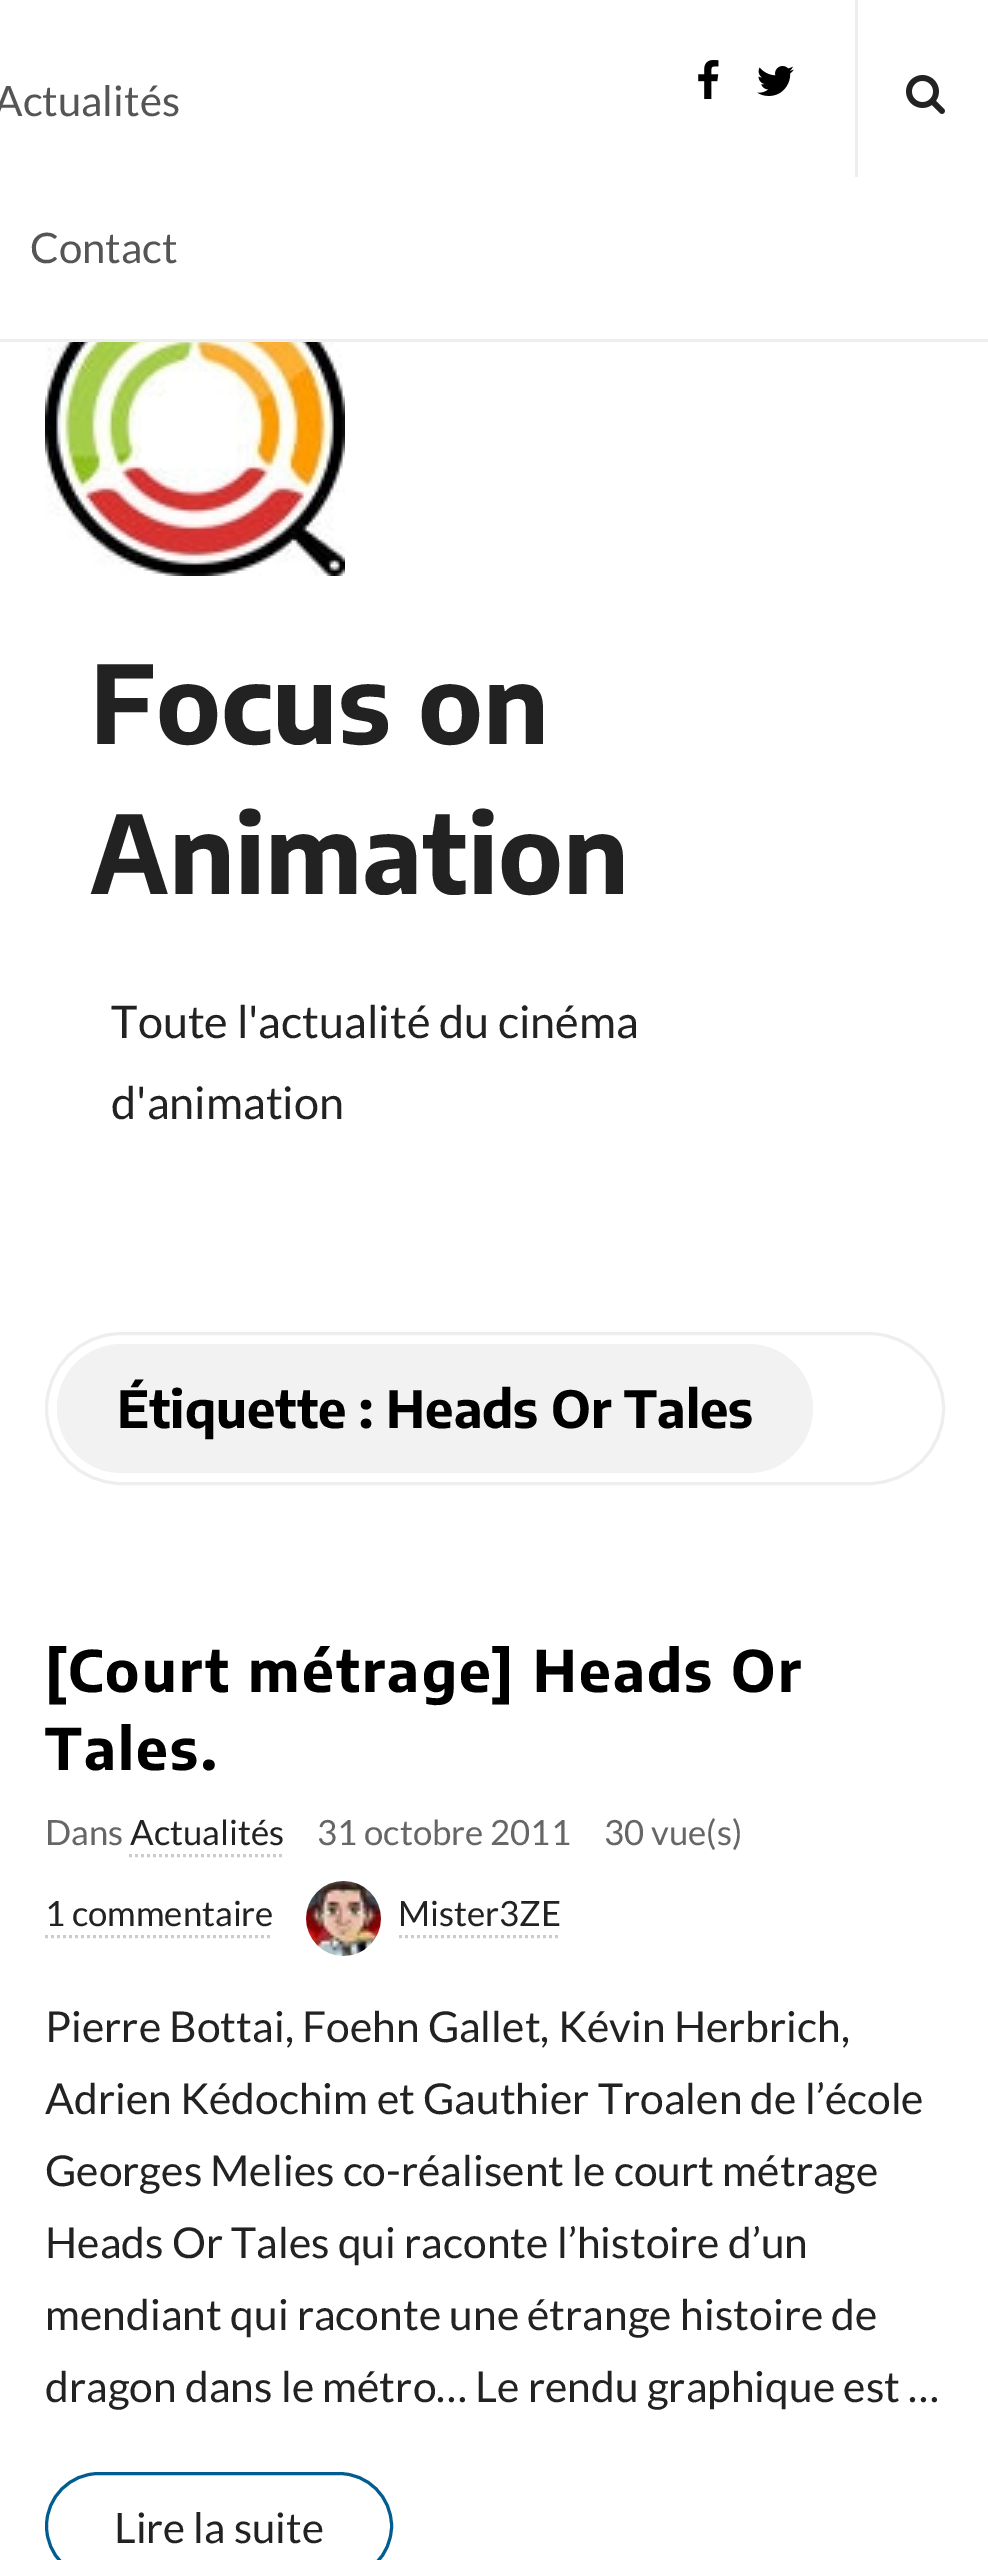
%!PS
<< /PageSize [988 2560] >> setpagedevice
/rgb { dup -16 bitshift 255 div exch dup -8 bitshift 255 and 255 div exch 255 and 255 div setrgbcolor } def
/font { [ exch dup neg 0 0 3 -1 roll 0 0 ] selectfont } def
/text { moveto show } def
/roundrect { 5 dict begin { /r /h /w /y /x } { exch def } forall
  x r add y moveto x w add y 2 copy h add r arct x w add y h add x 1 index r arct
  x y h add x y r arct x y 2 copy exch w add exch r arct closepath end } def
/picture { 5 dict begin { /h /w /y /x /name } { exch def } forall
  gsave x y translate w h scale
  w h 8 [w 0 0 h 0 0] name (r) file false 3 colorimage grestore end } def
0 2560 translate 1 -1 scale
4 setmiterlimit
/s1 { /Lato-Regular 42 font 16#555555 rgb } def
/s2 { /EncodeSansCondensed-Bold 108 font 16#222222 rgb } def
/s3 { /Lato-Regular 45 font 16#222222 rgb } def
/s4 { /EncodeSansCondensed-Bold 51 font 16#000000 rgb } def
/s5 { /Lato-Regular 34.75 font 16#666666 rgb } def
/s6 { /Lato-Regular 34.75 font 16#222222 rgb } def
/s7 { /Lato-Regular 42.6 font 16#222222 rgb } def
/s8 { /Lato-Regular 42 font 16#222222 rgb } def
16#FFFFFF rgb
0 0 988 2560 rectfill
16#EEEEEE rgb
0 339 988 3 rectfill
s1
(Actualités) -6 116 text
(Contact) 30 263 text
(pic1.raw) 698 60 21 39 picture
(pic2.raw) 757 66 37 30 picture
16#EEEEEE rgb
855 0 3 177 rectfill
(pic3.raw) 906 75 39 39 picture
(pic4.raw) 45 342 300 234 picture
s2
(Focus on) 90 744 text
(Animation) 90 894 text
s3
(Toute l'actualité du cinéma) 111 1038 text
(d'animation) 111 1119 text
16#EEEEEE rgb
3 setlinewidth
46.5 1333.5 897 150 75 roundrect stroke
16#F2F2F2 rgb
57 1344 756 129 64.5 roundrect fill
s4
(Étiquette : Heads Or Tales) 117 1428 text
/EncodeSansCondensed-Bold 57 font
45 1692 moveto 2.4 0 ([Court métrage] Heads Or) ashow
45 1770 moveto 2.4 0 (Tales.) ashow
s5
(Dans) 45 1845 text
s6
(Actualités) 130 1845 text
16#CCCCCC rgb
[3 3] 0 setdash
129 1855.5 moveto 285 1855.5 lineto stroke
s5
(31 octobre 2011) 317 1845 text
(30 vue\(s\)) 604 1845 text
s6
(1 commentaire) 45 1926 text
16#CCCCCC rgb
45 1936.5 moveto 273 1936.5 lineto stroke
(pic5.raw) 306 1881 75 75 picture
s6
(Mister3ZE) 398 1926 text
16#CCCCCC rgb
399 1936.5 moveto 561 1936.5 lineto stroke
s7
(Pierre Bottai, Foehn Gallet, Kévin Herbrich,) 45 2042 text
(Adrien Kédochim et Gauthier Troalen de l’école) 45 2114 text
(Georges Melies co-réalisent le court métrage) 45 2186 text
(Heads Or Tales qui raconte l’histoire d’un) 45 2258 text
(mendiant qui raconte une étrange histoire de) 45 2330 text
(dragon dans le métro… Le rendu graphique est) 45 2402 text
(…) 908 2402 text
16#015D90 rgb
[] 0 setdash
46.5 2473.5 345 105 52.5 roundrect stroke
s8
(Lire la suite) 114 2543 text
showpage
